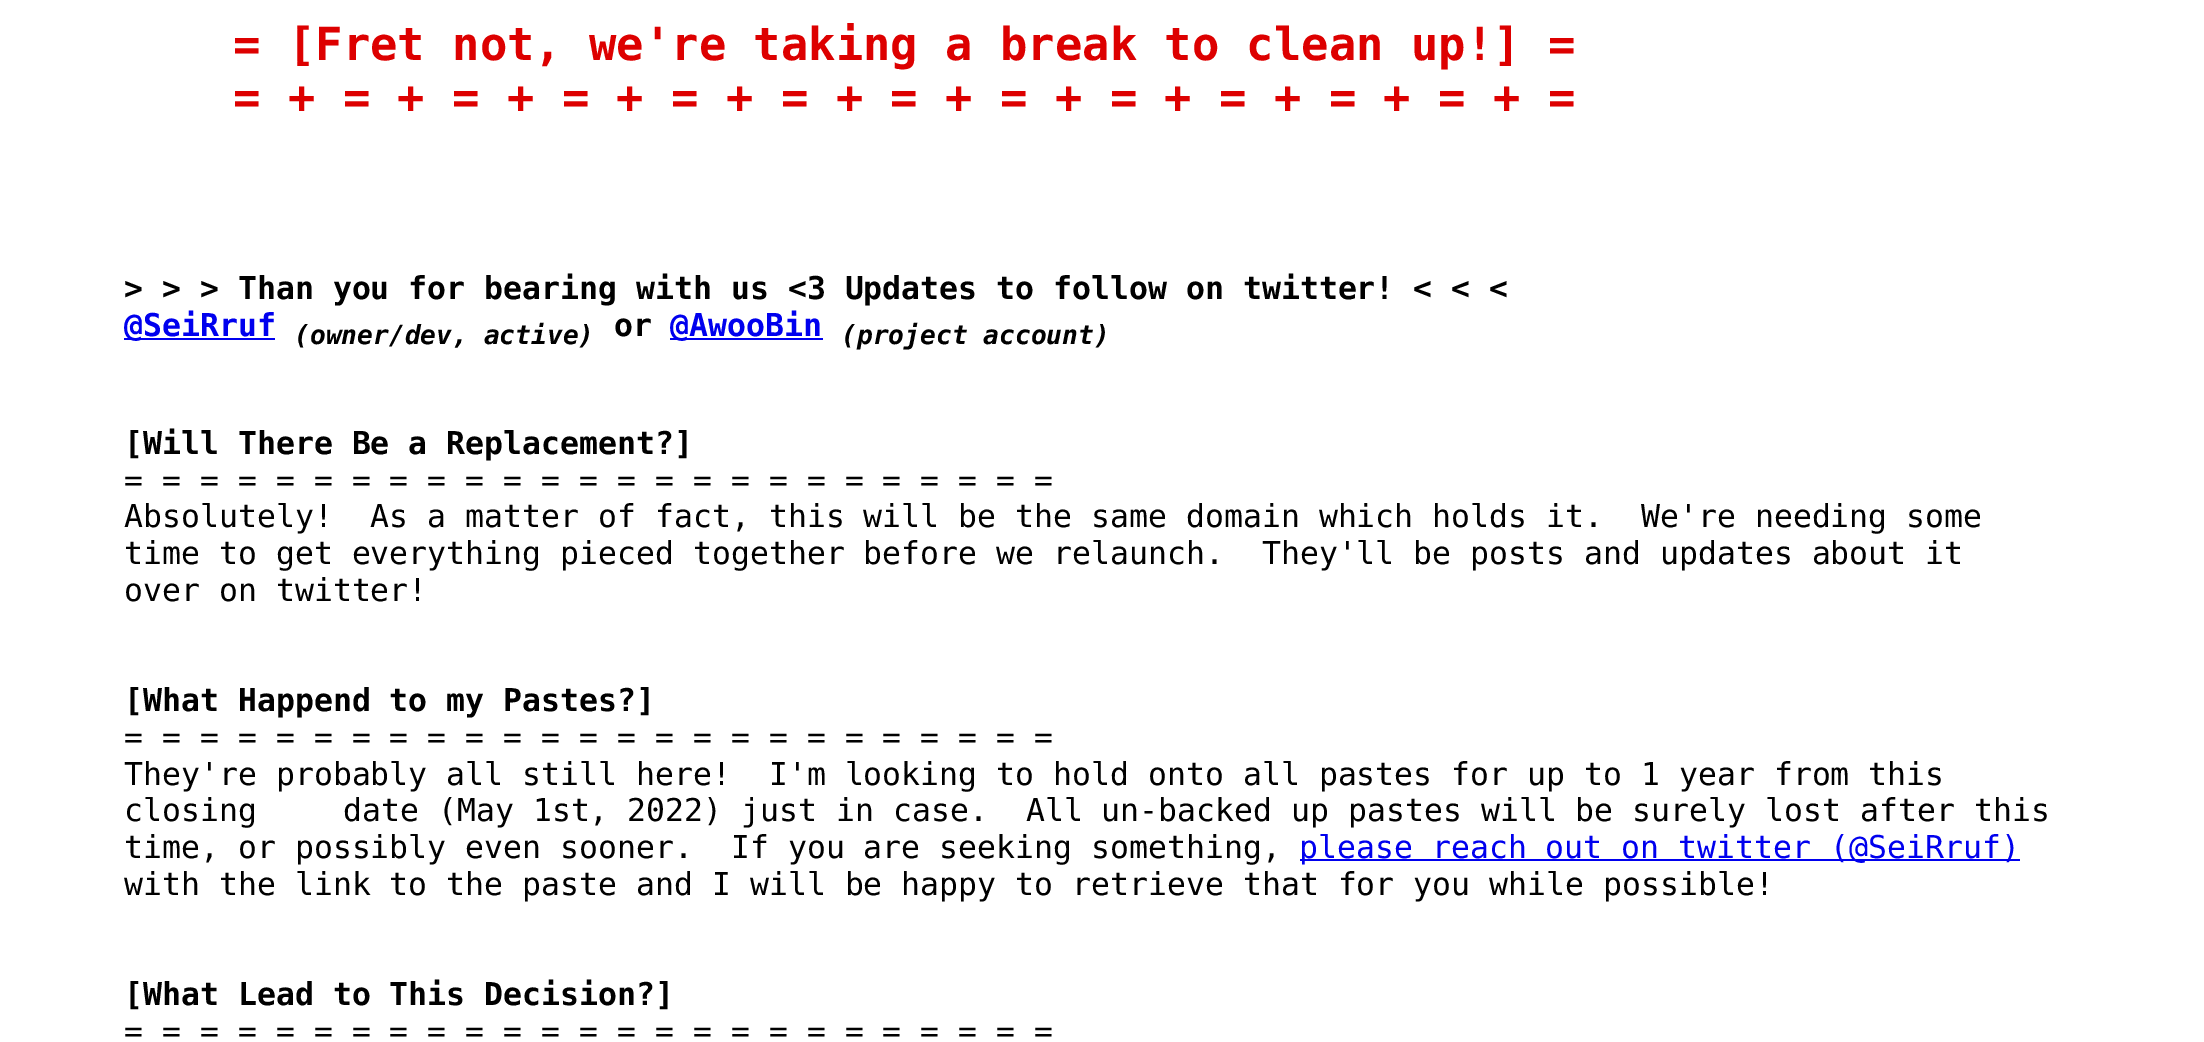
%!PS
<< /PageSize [2204 1042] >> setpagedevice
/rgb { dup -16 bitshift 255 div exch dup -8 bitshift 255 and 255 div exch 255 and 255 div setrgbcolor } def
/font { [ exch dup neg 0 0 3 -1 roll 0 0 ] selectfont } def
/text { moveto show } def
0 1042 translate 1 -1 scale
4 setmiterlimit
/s1 { /DejaVuSansMono-Bold 45.5 font 16#DD0000 rgb } def
/s2 { /DejaVuSansMono-Bold 31.5 font 16#000000 rgb } def
/s3 { /DejaVuSansMono-Bold 31.5 font 16#0000EE rgb } def
/s4 { /DejaVuSansMono-BoldItalic 26.25 font 16#000000 rgb } def
/s5 { /DejaVuSansMono-Regular 31.5 font 16#000000 rgb } def
/s6 { /DejaVuSansMono-Regular 31.5 font 16#0000EE rgb } def
16#FFFFFF rgb
0 0 2204 1042 rectfill
s1
(= [Fret not, we're taking a break to clean up!] =) 233 60 text
(= + = + = + = + = + = + = + = + = + = + = + = + =) 233 113 text
s2
(> > > Than you for bearing with us <3 Updates to follow on twitter! < < <) 124 299 text
16#0000EE rgb
124 338 151 2 rectfill
(@SeiRruf) 124 336 text
s4
(\(owner/dev, active\)) 294 344 text
s2
(or) 614 336 text
16#0000EE rgb
670 338 153 2 rectfill
(@AwooBin) 670 336 text
s4
(\(project account\)) 841 344 text
s2
([Will There Be a Replacement?]) 124 454 text
s5
(= = = = = = = = = = = = = = = = = = = = = = = = =) 124 491 text
(Absolutely!  As a matter of fact, this will be the same domain which holds it.  We're needing some) 124 527 text
(time to get everything pieced together before we relaunch.  They'll be posts and updates about it) 124 564 text
(over on twitter!) 124 601 text
s2
([What Happend to my Pastes?]) 124 711 text
s5
(= = = = = = = = = = = = = = = = = = = = = = = = =) 124 748 text
(They're probably all still here!  I'm looking to hold onto all pastes for up to 1 year from this) 124 785 text
(closing) 124 821 text
(date \(May 1st, 2022\) just in case.  All un-backed up pastes will be surely lost after this) 343 821 text
(time, or possibly even sooner.  If you are seeking something,) 124 858 text
16#0000EE rgb
1300 859 720 2 rectfill
(please reach out on twitter \(@SeiRruf\)) 1299 858 text
s5
(with the link to the paste and I will be happy to retrieve that for you while possible!) 124 895 text
s2
([What Lead to This Decision?]) 124 1005 text
s5
(= = = = = = = = = = = = = = = = = = = = = = = = =) 124 1042 text
showpage
